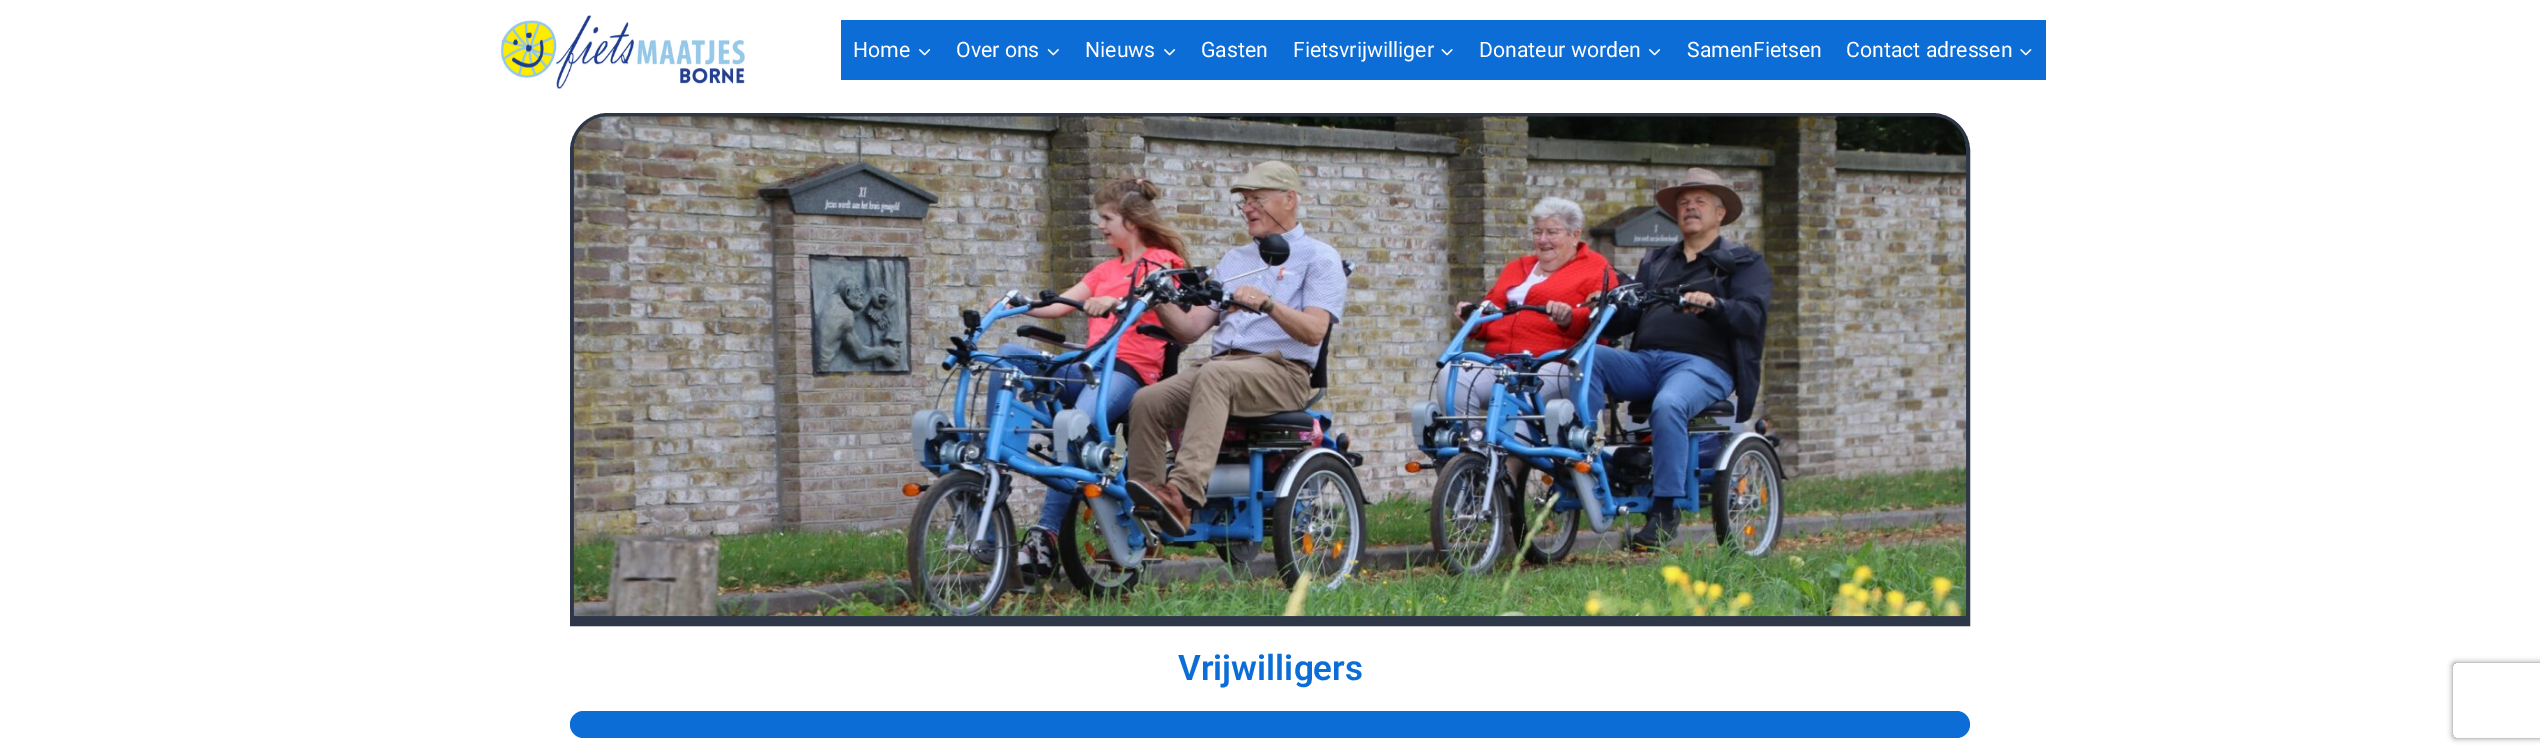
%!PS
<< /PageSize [2540 754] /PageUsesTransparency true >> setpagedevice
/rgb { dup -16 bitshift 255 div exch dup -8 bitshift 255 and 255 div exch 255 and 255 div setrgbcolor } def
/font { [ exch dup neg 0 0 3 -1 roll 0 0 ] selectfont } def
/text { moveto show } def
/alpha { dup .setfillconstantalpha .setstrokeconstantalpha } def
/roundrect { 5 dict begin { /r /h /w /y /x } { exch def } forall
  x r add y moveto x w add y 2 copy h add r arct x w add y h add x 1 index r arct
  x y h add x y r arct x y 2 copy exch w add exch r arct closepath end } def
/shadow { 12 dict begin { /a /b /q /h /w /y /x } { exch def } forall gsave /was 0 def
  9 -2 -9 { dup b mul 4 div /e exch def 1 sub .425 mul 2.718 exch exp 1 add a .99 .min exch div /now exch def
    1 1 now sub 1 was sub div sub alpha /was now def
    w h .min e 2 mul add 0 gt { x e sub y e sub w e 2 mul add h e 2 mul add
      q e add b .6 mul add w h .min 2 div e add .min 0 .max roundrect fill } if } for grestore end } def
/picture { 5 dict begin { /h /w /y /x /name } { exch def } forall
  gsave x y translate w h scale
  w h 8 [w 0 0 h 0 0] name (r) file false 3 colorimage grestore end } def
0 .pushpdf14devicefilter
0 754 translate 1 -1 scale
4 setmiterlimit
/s1 { /Roboto-Regular 21.25 font 16#FFFFFF rgb } def
/s2 { /Roboto-SemiBold 35 font 16#0B6DD5 rgb } def
16#FFFFFF rgb
0 0 2540 754 rectfill
(pic1.raw) 500 15 245 74 picture
16#0B6DD5 rgb
841 20 1205 60 rectfill
s1
(Home) 853 57 text
(pic2.raw) 919 49 12 7 picture
(Over ons) 956 57 text
(pic3.raw) 1047 49 12 7 picture
(Nieuws) 1085 57 text
(pic2.raw) 1164 49 12 7 picture
(Gasten) 1201 57 text
(Fietsvrijwilliger) 1293 57 text
(pic4.raw) 1441 49 12 7 picture
(Donateur worden) 1479 57 text
(pic2.raw) 1649 49 12 7 picture
(SamenFietsen) 1687 57 text
(Contact adressen) 1846 57 text
(pic5.raw) 2020 49 12 7 picture
16#2D3748 rgb
4 setlinewidth
608 115 moveto 1932 115 lineto 1952 115 1968 131 1968 151 curveto 1968 624 lineto 572 624 lineto 572 151 lineto 572 131 588 115 608 115 curveto closepath stroke
570 616 1400 6 rectfill
(pic6.raw) 573 116 1394 501 picture
s2
(Vrijwilligers) 1178 680 text
570 711 1400 27 13.5 roundrect fill
570 724 1400 1 rectfill
gsave
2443 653 moveto 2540 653 lineto 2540 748 lineto 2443 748 lineto closepath 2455.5 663 moveto 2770.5 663 lineto 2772 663 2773 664 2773 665.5 curveto 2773 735.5 lineto 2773 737 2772 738 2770.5 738 curveto 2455.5 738 lineto 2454 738 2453 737 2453 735.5 curveto 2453 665.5 lineto 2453 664 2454 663 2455.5 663 curveto closepath eoclip newpath
16#808080 rgb
2453 663 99 75 2.5 3 1 shadow
grestore
.poppdf14devicefilter showpage
